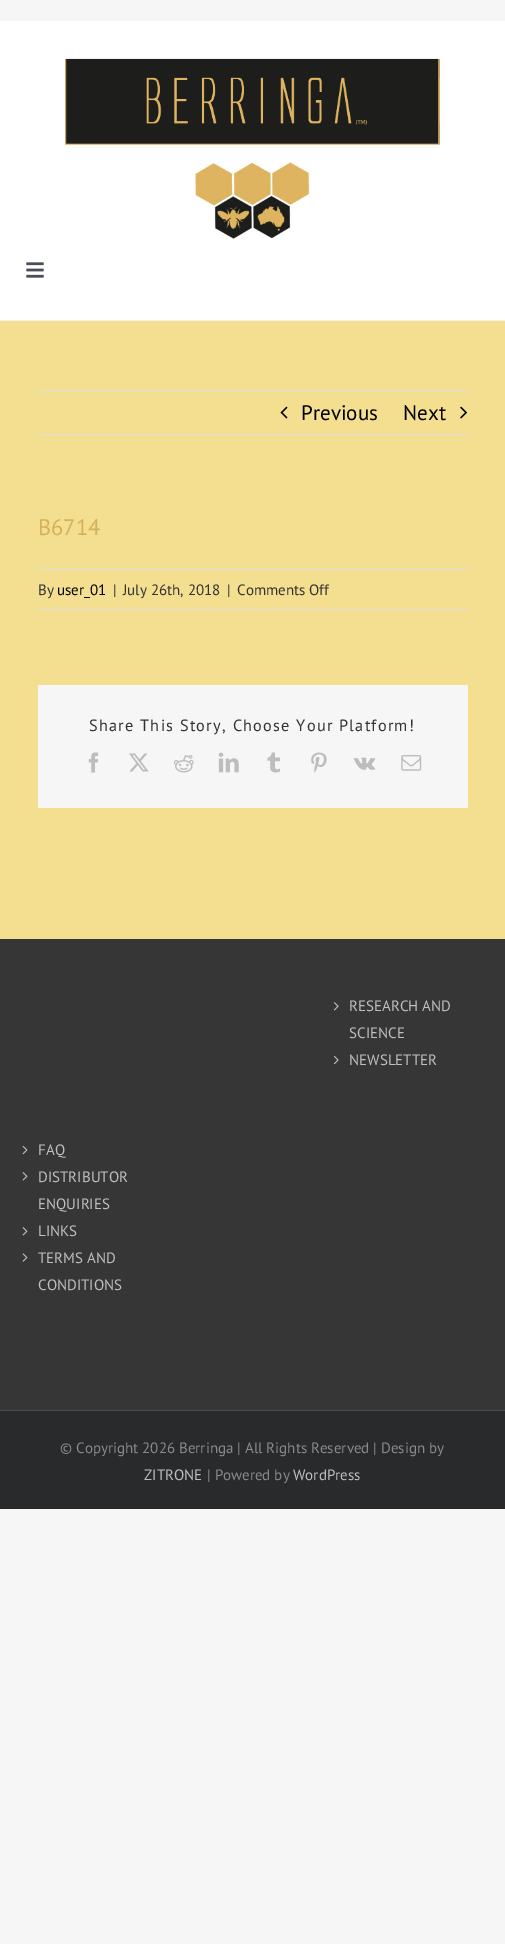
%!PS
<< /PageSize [505 1944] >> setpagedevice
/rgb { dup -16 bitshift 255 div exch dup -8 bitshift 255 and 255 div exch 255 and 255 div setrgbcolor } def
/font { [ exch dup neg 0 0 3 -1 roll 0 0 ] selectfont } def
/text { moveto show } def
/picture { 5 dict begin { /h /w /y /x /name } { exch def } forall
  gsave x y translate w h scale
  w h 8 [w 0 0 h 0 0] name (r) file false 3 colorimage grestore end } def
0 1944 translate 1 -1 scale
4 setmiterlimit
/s1 { /PTSans-Regular 21 font 16#000000 rgb } def
/s2 { /PTSans-Regular 22.5 font 16#D3B25B rgb } def
/s3 { /PTSans-Regular 15 font 16#333333 rgb } def
/s4 { /PTSans-Regular 15 font 16#000000 rgb } def
/s5 { /PTSans-Regular 15 font 16#BFBFBF rgb } def
/s6 { /PTSans-Regular 15 font 16#8C8989 rgb } def
16#F6F6F6 rgb
0 0 505 1944 rectfill
16#FFFFFF rgb
0 21 505 299 rectfill
16#F2F2F2 rgb
0 320 505 1 rectfill
(pic1.raw) 65 58 375 87 picture
(pic2.raw) 195 162 115 77 picture
(pic3.raw) 26 262 18 16 picture
16#F4DF90 rgb
0 321 505 618 rectfill
16#E0DEDE rgb
38 390 430 1 rectfill
38 434 430 1 rectfill
(pic4.raw) 280 406 8 13 picture
s1
(Previous) 301 420 text
(Next) 403 420 text
(pic5.raw) 460 406 7 13 picture
s2
(B6714) 38 535 text
16#E0DEDE rgb
38 569 430 1 rectfill
38 609 430 1 rectfill
s3
(By) 38 595 text
s4
(user_01) 57 595 text
s3
(|) 113 595 text
(July 26th, 2018) 123 595 text
(|) 227 595 text
(Comments Off) 237 595 text
16#F6F6F6 rgb
38 685 430 123 rectfill
/PTSans-Regular 16.25 font
16#333333 rgb
89 731 moveto 1.25 0 (Share This Story, Choose Your Platform!) ashow
(pic6.raw) 88 752 11 21 picture
(pic7.raw) 129 753 20 19 picture
(pic8.raw) 173 755 21 18 picture
(pic9.raw) 218 752 21 21 picture
(pic10.raw) 267 752 13 21 picture
(pic11.raw) 311 752 16 21 picture
(pic12.raw) 353 757 23 13 picture
(pic13.raw) 401 755 21 16 picture
16#363636 rgb
0 939 505 471 rectfill
(pic14.raw) 333 1002 6 9 picture
s5
(RESEARCH AND) 349 1011 text
(SCIENCE) 349 1038 text
(pic15.raw) 333 1055 6 10 picture
(NEWSLETTER) 349 1065 text
(pic16.raw) 22 1145 6 10 picture
(FAQ) 38 1155 text
(pic17.raw) 22 1172 6 9 picture
(DISTRIBUTOR) 38 1182 text
(ENQUIRIES) 38 1209 text
(pic17.raw) 22 1227 6 9 picture
(LINKS) 38 1236 text
(pic18.raw) 22 1253 6 9 picture
(TERMS AND) 38 1263 text
(CONDITIONS) 38 1290 text
16#282A2B rgb
0 1411 505 98 rectfill
16#4B4C4D rgb
0 1410 505 1 rectfill
s6
(© Copyright 2026 Berringa | All Rights Reserved | Design by) 60 1453 text
s5
(ZITRONE) 144 1480 text
s6
(| Powered by) 207 1480 text
s5
(WordPress) 293 1480 text
showpage
